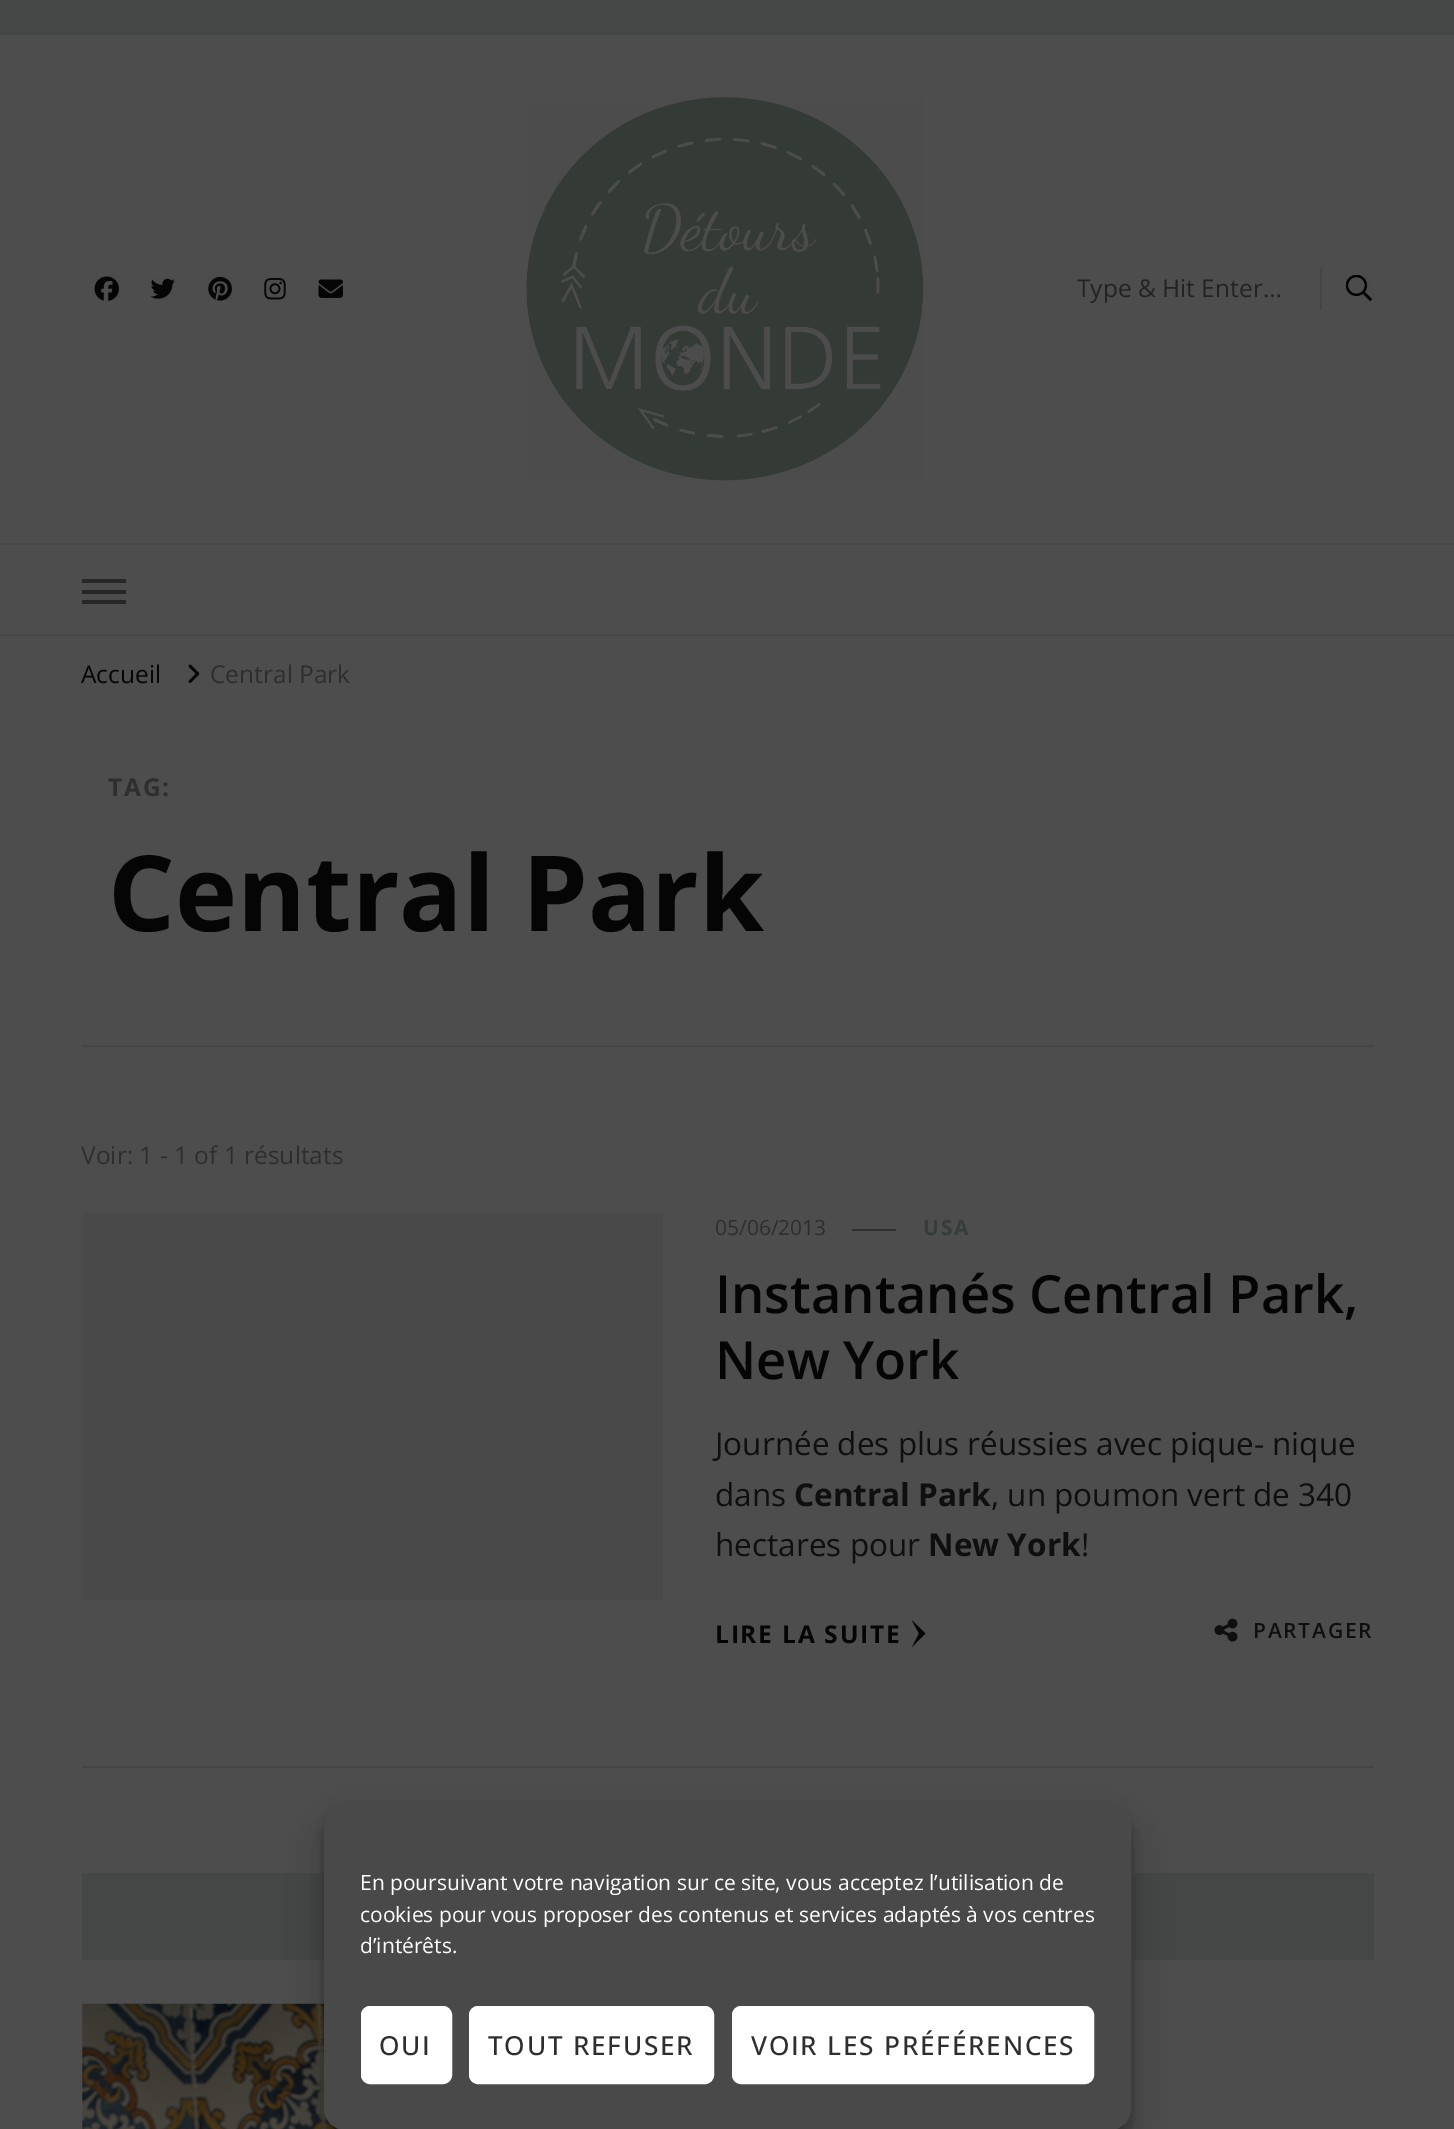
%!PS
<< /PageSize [1454 2129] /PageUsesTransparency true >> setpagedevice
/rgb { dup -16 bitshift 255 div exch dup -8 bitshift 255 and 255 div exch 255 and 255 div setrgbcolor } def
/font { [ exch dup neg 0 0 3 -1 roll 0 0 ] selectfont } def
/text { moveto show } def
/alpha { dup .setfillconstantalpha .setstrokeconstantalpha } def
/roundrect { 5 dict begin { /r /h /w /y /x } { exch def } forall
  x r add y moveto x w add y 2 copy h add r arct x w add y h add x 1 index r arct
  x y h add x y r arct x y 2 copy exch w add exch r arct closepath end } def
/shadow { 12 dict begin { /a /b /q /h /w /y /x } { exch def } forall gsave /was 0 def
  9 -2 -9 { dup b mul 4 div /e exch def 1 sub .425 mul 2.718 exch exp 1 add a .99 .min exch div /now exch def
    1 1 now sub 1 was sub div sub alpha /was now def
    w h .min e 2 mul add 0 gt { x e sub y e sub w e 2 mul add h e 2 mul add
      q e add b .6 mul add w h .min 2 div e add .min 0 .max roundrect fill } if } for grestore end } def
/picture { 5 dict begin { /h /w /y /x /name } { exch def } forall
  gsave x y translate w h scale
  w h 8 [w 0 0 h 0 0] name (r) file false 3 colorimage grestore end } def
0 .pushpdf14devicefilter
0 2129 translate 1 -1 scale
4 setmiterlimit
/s1 { /OpenSans-Regular 24.5 font 16#232323 rgb } def
/s2 { /OpenSans-Regular 24.5 font 16#050505 rgb } def
/s3 { /OpenSans-Regular 24.5 font 16#2E2E2E rgb } def
/s4 { /OpenSans-Bold 105 font 16#050505 rgb } def
/s5 { /OpenSans-Regular 21 font 16#2E2E2E rgb } def
/s6 { /OpenSans-SemiBold 52.6 font 16#050505 rgb } def
/s7 { /OpenSans-Regular 31.5 font 16#0F0F0F rgb } def
/s8 { /OpenSans-Bold 31.5 font 16#0F0F0F rgb } def
/s9 { /OpenSans-Regular 21 font 16#FFFFFF rgb } def
16#4D4D4D rgb
0 0 1454 2129 rectfill
16#454746 rgb
0 0 1454 35 rectfill
(pic1.raw) 94 276 25 25 picture
(pic2.raw) 150 278 25 21 picture
(pic3.raw) 208 276 24 25 picture
(pic4.raw) 264 278 22 22 picture
(pic5.raw) 318 279 25 19 picture
(pic6.raw) 526 97 398 384 picture
s1
(Type & Hit Enter…) 1077 297 text
(pic7.raw) 1346 275 26 26 picture
16#454545 rgb
1320 268 2 42 rectfill
16#474747 rgb
0 543 1454 2 rectfill
0 634 1454 2 rectfill
16#262626 rgb
82 579 44 4 rectfill
82 590 44 4 rectfill
82 600 44 4 rectfill
s2
(Accueil) 81 683 text
(pic8.raw) 188 664 12 19 picture
s3
(Central Park) 210 683 text
16#454545 rgb
82 1045 1292 2 rectfill
/OpenSans-Bold 24.5 font
16#2E2E2E rgb
108 796 moveto 1.75 0 (TAG:) ashow
s4
(Central Park) 108 931 text
s3
(Voir: 1 - 1 of 1 résultats) 81 1164 text
16#454545 rgb
82 1766 1292 2 rectfill
16#494949 rgb
82 1213 581 387 rectfill
s5
(05/06/2013) 715 1235 text
852 1229 44 2 rectfill
/OpenSans-Bold 21 font
16#363D39 rgb
923 1235 moveto 1.75 0 (USA) ashow
s6
(Instantanés Central Park,) 715 1313 text
(New York) 715 1379 text
s7
(Journée des plus réussies avec pique- nique) 715 1455 text
(dans) 715 1506 text
s8
(Central Park) 794 1506 text
s7
(, un poumon vert de 340) 991 1506 text
(hectares pour) 715 1556 text
s8
(New York) 928 1556 text
s7
(!) 1081 1556 text
/OpenSans-Bold 24.5 font
16#050505 rgb
715 1643 moveto 1.75 0 (LIRE LA SUITE) ashow
925.5 1633.5 moveto 912 1647 lineto 919 1633.5 lineto 912 1620.5 lineto closepath fill
(pic9.raw) 1214 1618 24 24 picture
/OpenSans-SemiBold 21 font
16#0F0F0F rgb
1253 1638 moveto 1.75 0 (PARTAGER) ashow
16#454746 rgb
82 1873 1292 87 rectfill
(pic10.raw) 82 2003 257 126 picture
16#000000 rgb
324 1815 807 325 21 5 0.23 shadow
324 1822 807 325 21 17.5 0.19 shadow
16#494949 rgb
325 1805 805 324 20 roundrect gsave fill grestore
2 setlinewidth
stroke
s9
(En poursuivant votre navigation sur ce site, vous acceptez l’utilisation de) 360 1890 text
(cookies pour vous proposer des contenus et services adaptés à vos centres) 360 1922 text
(d’intérêts.) 360 1953 text
362 2007 89 76 8 roundrect gsave fill grestore
stroke
/OpenSans-Medium 26.25 font
16#2E2E2E rgb
379 2055 moveto 1.75 0 (OUI) ashow
16#FFFFFF rgb
470 2007 243 76 8 roundrect gsave fill grestore
stroke
16#2E2E2E rgb
488 2055 moveto 1.75 0 (TOUT REFUSER) ashow
16#FFFFFF rgb
733 2007 360 76 8 roundrect gsave fill grestore
stroke
16#2E2E2E rgb
751 2055 moveto 1.75 0 (VOIR LES PRÉFÉRENCES) ashow
.poppdf14devicefilter showpage
